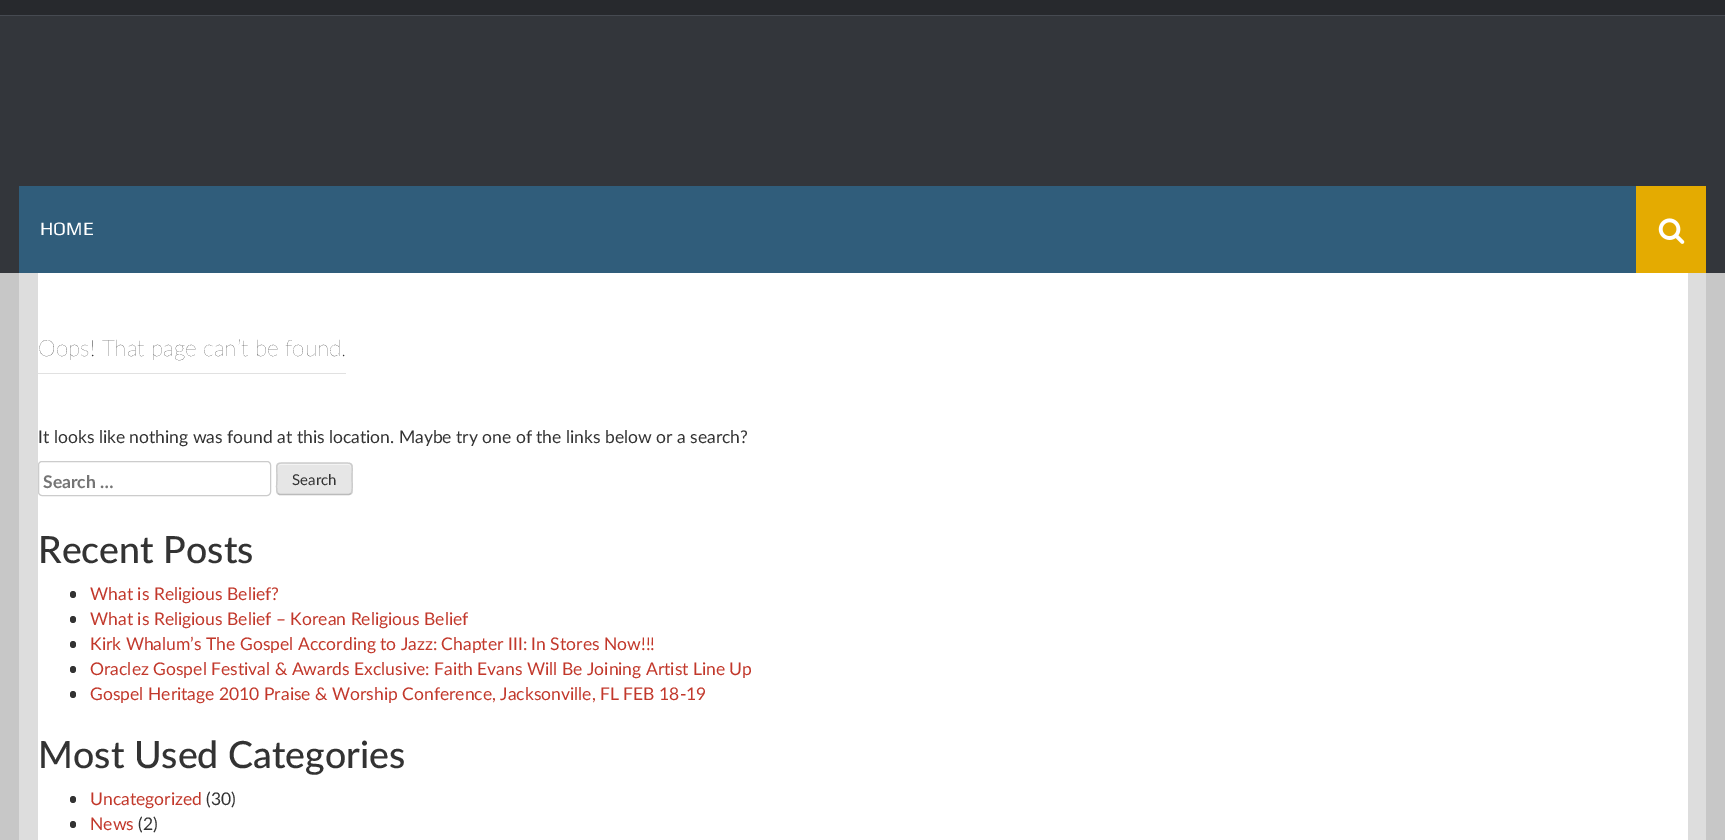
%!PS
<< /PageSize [1725 840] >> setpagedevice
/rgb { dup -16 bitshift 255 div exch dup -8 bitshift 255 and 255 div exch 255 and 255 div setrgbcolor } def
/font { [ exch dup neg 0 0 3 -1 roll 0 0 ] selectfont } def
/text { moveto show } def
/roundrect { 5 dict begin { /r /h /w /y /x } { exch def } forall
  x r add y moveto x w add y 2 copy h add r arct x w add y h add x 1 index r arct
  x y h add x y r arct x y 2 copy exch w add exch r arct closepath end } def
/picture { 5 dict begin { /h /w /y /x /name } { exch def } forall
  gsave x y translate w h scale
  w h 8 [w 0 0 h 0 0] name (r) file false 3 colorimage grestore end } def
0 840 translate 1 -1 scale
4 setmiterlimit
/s1 { /Play-Regular 19 font 16#FFFFFF rgb } def
/s2 { /Lato-ExtraLight 22.5 font 16#333333 rgb } def
/s3 { /Lato-Regular 17.5 font 16#333333 rgb } def
/s4 { /Lato-Bold 17.5 font 16#757575 rgb } def
/s5 { /Lato-Regular 15 font 16#333333 rgb } def
/s6 { /Lato-Medium 37.5 font 16#333333 rgb } def
/s7 { /Lato-Regular 17.5 font 16#C2382B rgb } def
16#27292D rgb
0 0 1725 840 rectfill
16#33363B rgb
0 16 1725 170 rectfill
16#464A51 rgb
0 15 1725 1 rectfill
16#305D7B rgb
19 186 1617 87 rectfill
16#33363B rgb
1706 186 19 87 rectfill
0 186 19 87 rectfill
s1
(HOME) 40 235 text
16#E4AB01 rgb
1636 186 70 87 rectfill
(pic1.raw) 1658 218 27 26 picture
16#DDDDDD rgb
19 273 1687 567 rectfill
16#C7C7C7 rgb
1706 273 19 567 rectfill
0 273 19 567 rectfill
16#FFFFFF rgb
38 273 1650 567 rectfill
16#E1E1E1 rgb
38 373 308 1 rectfill
s2
(Oops! That page can’t be found.) 38 356 text
s3
(It looks like nothing was found at this location. Maybe try one of the links below or a search?) 38 443 text
16#CCCCCC rgb
38.5 461.5 232 34 3.5 roundrect stroke
s4
(Search …) 43 488 text
16#E6E6E6 rgb
276 463 77 32 4 roundrect fill
16#F3F3F3 rgb
280 465 moveto 349 465 lineto 350 465 351 466 351 468 curveto 351 461 343 464 337 464 curveto 292 464 lineto 286 464 278 461 278 468 curveto 278 466 279 465 280 465 curveto closepath fill
16#BBBBBB rgb
1.2 setlinewidth
351 493.5 moveto 349 494.5 lineto 279.5 494.5 lineto 278 493.5 lineto stroke
16#CCCCCC rgb
278 493.5 moveto 275.5 491.5 277 481.5 277 479 curveto 277 461 273.5 463 291.5 463 curveto 337.5 463 lineto 355 463 352 461 352 479 curveto 352 481.5 353 491.5 351 493.5 curveto stroke
s5
(Search) 292 485 text
s6
(Recent Posts) 38 563 text
70 591 6 7 3 roundrect fill
s7
(What is Religious Belief?) 90 600 text
16#333333 rgb
70 616 6 7 3 roundrect fill
s7
(What is Religious Belief – Korean Religious Belief) 90 625 text
16#333333 rgb
70 641 6 7 3 roundrect fill
s7
(Kirk Whalum’s The Gospel According to Jazz: Chapter III: In Stores Now!!!) 90 650 text
16#333333 rgb
70 666 6 7 3 roundrect fill
s7
(Oraclez Gospel Festival & Awards Exclusive: Faith Evans Will Be Joining Artist Line Up) 90 675 text
16#333333 rgb
70 691 6 7 3 roundrect fill
s7
(Gospel Heritage 2010 Praise & Worship Conference, Jacksonville, FL FEB 18-19) 90 700 text
s6
(Most Used Categories) 38 768 text
70 796 6 7 3 roundrect fill
s7
(Uncategorized) 90 805 text
s3
(\(30\)) 206 805 text
70 821 6 7 3 roundrect fill
s7
(News) 90 830 text
s3
(\(2\)) 138 830 text
showpage
